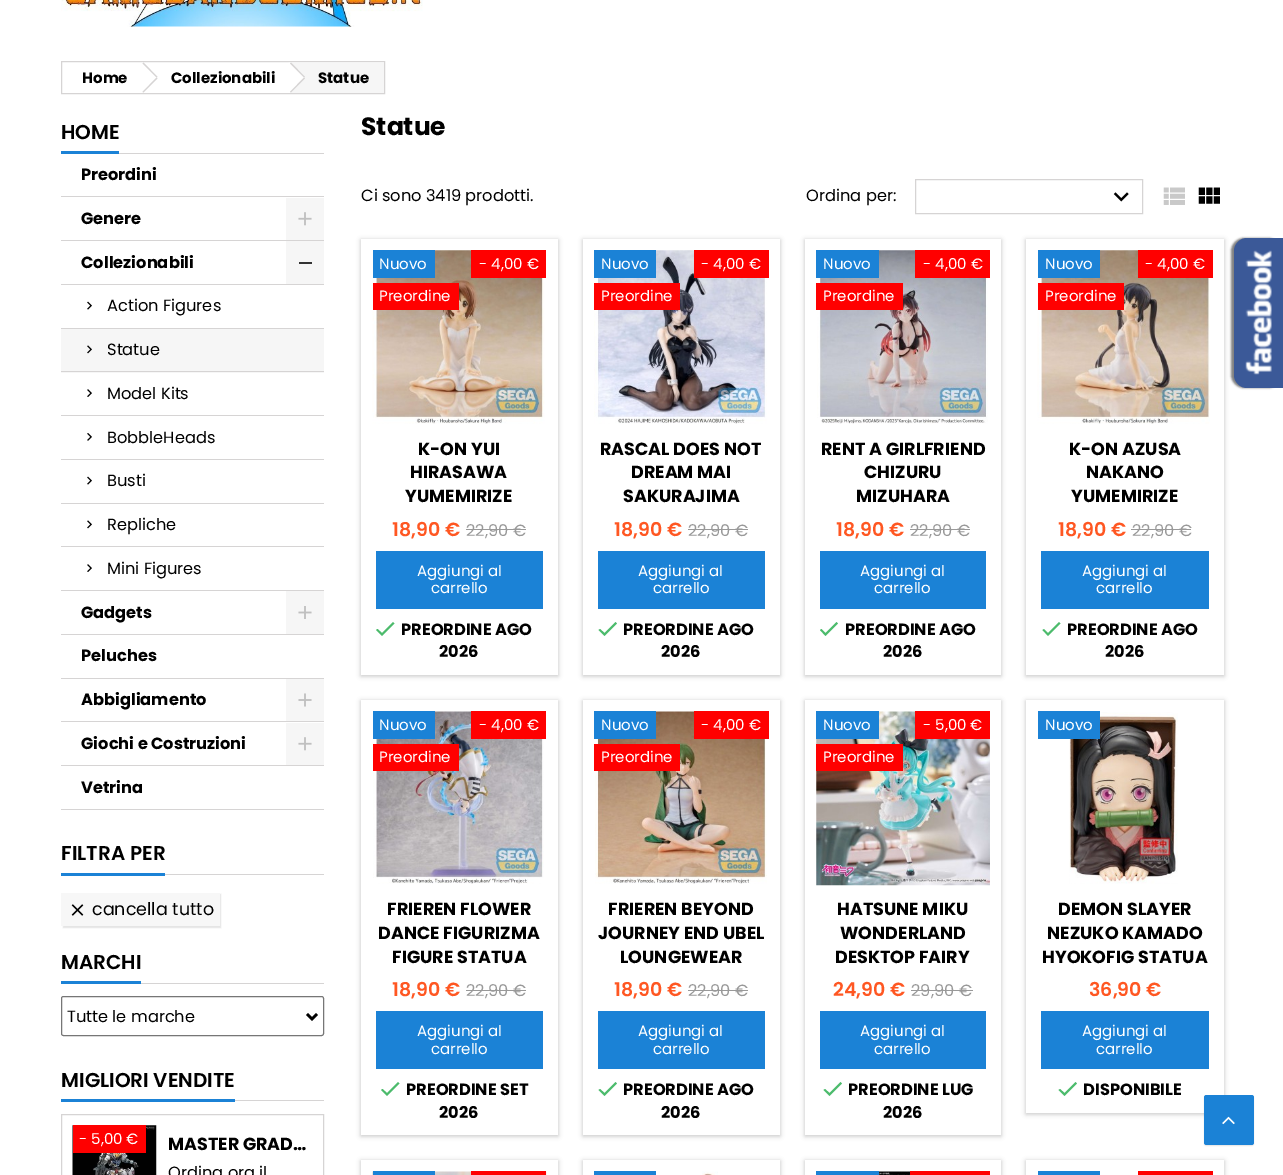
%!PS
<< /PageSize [1283 1175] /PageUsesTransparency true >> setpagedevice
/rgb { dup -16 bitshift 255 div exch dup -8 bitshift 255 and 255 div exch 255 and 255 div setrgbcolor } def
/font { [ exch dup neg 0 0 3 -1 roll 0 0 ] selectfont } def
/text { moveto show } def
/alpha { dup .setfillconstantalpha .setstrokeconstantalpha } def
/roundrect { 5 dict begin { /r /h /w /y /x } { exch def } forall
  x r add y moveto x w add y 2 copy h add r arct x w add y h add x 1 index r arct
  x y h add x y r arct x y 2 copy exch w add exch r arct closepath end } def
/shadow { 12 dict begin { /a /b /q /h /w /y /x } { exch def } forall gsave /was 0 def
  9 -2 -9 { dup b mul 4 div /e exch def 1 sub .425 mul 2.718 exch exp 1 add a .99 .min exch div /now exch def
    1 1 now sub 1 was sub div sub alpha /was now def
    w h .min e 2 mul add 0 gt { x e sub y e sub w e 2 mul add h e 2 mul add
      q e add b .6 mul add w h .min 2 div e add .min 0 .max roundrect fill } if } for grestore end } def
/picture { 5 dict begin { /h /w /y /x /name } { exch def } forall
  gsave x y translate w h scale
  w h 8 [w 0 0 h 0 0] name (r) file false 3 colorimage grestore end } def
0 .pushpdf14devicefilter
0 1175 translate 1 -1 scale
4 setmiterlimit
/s1 { /Poppins-Bold 15 font 16#000000 rgb } def
/s2 { /Poppins-SemiBold 20 font 16#000000 rgb } def
/s3 { /Poppins-Bold 16.25 font 16#000000 rgb } def
/s4 { /Poppins-Regular 16.25 font 16#000000 rgb } def
/s5 { /Poppins-Regular 17.5 font 16#000000 rgb } def
/s6 { /Poppins-Regular 15 font 16#FFFFFF rgb } def
/s7 { /Poppins-Bold 17.5 font 16#000000 rgb } def
/s8 { /Poppins-Bold 25 font 16#000000 rgb } def
/s9 { /Poppins-SemiBold 19 font 16#FF5722 rgb } def
/s10 { /Poppins-Regular 16.25 font 16#999999 rgb } def
16#FFFFFF rgb
0 0 1283 1175 rectfill
(pic1.raw) 61 0 362 27 picture
16#D6D4D4 rgb
61.5 61.5 323 32 rectstroke
s1
(Home) 82 83 text
16#D6D4D4 rgb
143.5 62.5 moveto 157.5 77 lineto 156.5 77.5 lineto 142.5 63.5 lineto closepath fill
156.5 77.5 moveto 157.5 78.5 lineto 143.5 92.5 lineto 142.5 92 lineto closepath fill
s1
(Collezionabili) 171 83 text
16#F6F6F6 rgb
291 63 93 30 rectfill
16#FFFFFF rgb
291.5 63.5 moveto 304 76 lineto 305 77 305 78.5 304 79.5 curveto 291.5 92 lineto 291 93 289 93 288 92 curveto 276 79.5 lineto 275 78.5 275 77 276 76 curveto 288 63.5 lineto 289 62.5 291 62.5 291.5 63.5 curveto closepath fill
16#D6D4D4 rgb
291 62.5 moveto 305 77 lineto 304 77.5 lineto 290 63.5 lineto closepath fill
304 77.5 moveto 305 78.5 lineto 291 92.5 lineto 290 92 lineto closepath fill
s1
(Statue) 318 83 text
16#D6D4D4 rgb
119 153 205 1 rectfill
16#1B82D6 rgb
61 151 58 3 rectfill
s2
(HOME) 61 139 text
16#D6D4D4 rgb
61 196 263 1 rectfill
s3
(Preordini) 81 180 text
16#D6D4D4 rgb
61 240 263 1 rectfill
s3
(Genere) 81 224 text
16#F6F6F6 rgb
286 198 38 42 rectfill
(pic2.raw) 298 212 14 14 picture
16#D6D4D4 rgb
61 284 263 1 rectfill
s3
(Collezionabili) 81 268 text
16#F6F6F6 rgb
286 241 38 43 rectfill
16#333333 rgb
299 262 13 2 rectfill
16#D6D4D4 rgb
61 328 263 1 rectfill
(pic3.raw) 87 301 5 9 picture
s4
(Action Figures) 107 311 text
16#F6F6F6 rgb
61 329 263 44 rectfill
16#D6D4D4 rgb
61 371 263 1 rectfill
(pic4.raw) 87 345 5 9 picture
s4
(Statue) 107 355 text
16#D6D4D4 rgb
61 415 263 1 rectfill
(pic5.raw) 87 389 5 8 picture
s4
(Model Kits) 107 399 text
16#D6D4D4 rgb
61 459 263 1 rectfill
(pic6.raw) 87 433 5 8 picture
s4
(BobbleHeads) 107 443 text
16#D6D4D4 rgb
61 503 263 1 rectfill
(pic3.raw) 87 476 5 9 picture
s4
(Busti) 107 486 text
16#D6D4D4 rgb
61 546 263 1 rectfill
(pic7.raw) 87 520 5 9 picture
s4
(Repliche) 107 530 text
16#D6D4D4 rgb
61 590 263 1 rectfill
(pic5.raw) 87 564 5 8 picture
s4
(Mini Figures) 107 574 text
16#D6D4D4 rgb
61 634 263 1 rectfill
s3
(Gadgets) 81 618 text
16#F6F6F6 rgb
286 591 38 43 rectfill
(pic8.raw) 298 606 14 13 picture
16#D6D4D4 rgb
61 678 263 1 rectfill
s3
(Peluches) 81 661 text
16#D6D4D4 rgb
61 721 263 1 rectfill
s3
(Abbigliamento) 81 705 text
16#F6F6F6 rgb
286 679 38 42 rectfill
(pic9.raw) 298 693 14 14 picture
16#D6D4D4 rgb
61 765 263 1 rectfill
s3
(Giochi e Costruzioni) 81 749 text
16#F6F6F6 rgb
286 723 38 42 rectfill
(pic2.raw) 298 737 14 14 picture
16#D6D4D4 rgb
61 809 263 1 rectfill
s3
(Vetrina) 81 793 text
16#D6D4D4 rgb
165 874 159 1 rectfill
16#1B82D6 rgb
61 873 104 3 rectfill
s2
(FILTRA PER) 61 860 text
63 894 158 34 0 0.5 0.1 shadow
16#F7F7F7 rgb
61 893 159 33 rectfill
(pic10.raw) 71 904 13 12 picture
s5
(cancella tutto) 92 915 text
16#D6D4D4 rgb
141 983 183 1 rectfill
16#1B82D6 rgb
61 981 80 3 rectfill
s2
(MARCHI) 61 969 text
16#767676 rgb
61.5 996.5 262 39 2 roundrect stroke
16#000000 rgb
2.5 setlinewidth
307 1014 moveto 312 1019 lineto 317 1014 lineto stroke
s4
(Tutte le marche) 67 1022 text
16#D6D4D4 rgb
235 1100 89 1 rectfill
16#1B82D6 rgb
61 1099 174 3 rectfill
s2
(MIGLIORI VENDITE) 61 1087 text
16#D6D4D4 rgb
1 setlinewidth
61.5 1114.5 262 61 rectstroke
(pic11.raw) 72 1125 85 50 picture
16#FF0000 rgb
73 1125 73 28 rectfill
s6
(- 5,00 €) 79 1144 text
s7
(MASTER GRAD…) 168 1150 text
s4
(Ordina ora il) 168 1178 text
s8
(Statue) 361 135 text
s4
(Ci sono 3419 prodotti.) 361 201 text
(Ordina per:) 806 201 text
16#D6D4D4 rgb
915.5 179.5 227 34 rectstroke
(pic12.raw) 1113 192 16 10 picture
(pic13.raw) 1163 187 22 18 picture
(pic14.raw) 1198 187 22 17 picture
16#000000 rgb
361 240 197 436 0 2.5 0.24 shadow
16#FFFFFF rgb
361 239 197 436 rectfill
(pic15.raw) 372 250 173 174 picture
16#1B82D6 rgb
373 250 62 28 rectfill
s6
(Nuovo) 379 269 text
16#FF0000 rgb
471 250 75 28 rectfill
s6
(- 4,00 €) 479 269 text
16#FF0000 rgb
373 283 86 27 rectfill
s6
(Preordine) 379 301 text
s7
(K-ON YUI) 418 455 text
(HIRASAWA) 410 478 text
(YUMEMIRIZE) 405 502 text
s9
(18,90 €) 392 536 text
s10
(22,90 €) 466 536 text
466 529 60 1 rectfill
16#1B82D6 rgb
376 551 167 58 rectfill
s6
(Aggiungi al) 417 576 text
(carrello) 431 593 text
16#4CBB6C rgb
382 633 moveto 393 622 lineto 394.5 623.5 lineto 382 636 lineto 376 630 lineto 377.5 629 lineto closepath fill
s3
(PREORDINE AGO) 401 635 text
(2026) 439 657 text
gsave
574 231 moveto 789 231 lineto 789 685 lineto 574 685 lineto closepath 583 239 moveto 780 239 lineto 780 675 lineto 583 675 lineto closepath eoclip newpath
583 240 197 436 0 2.5 0.24 shadow
grestore
(pic16.raw) 594 250 173 174 picture
16#1B82D6 rgb
594 250 62 28 rectfill
s6
(Nuovo) 601 269 text
16#FF0000 rgb
694 250 75 28 rectfill
s6
(- 4,00 €) 701 269 text
16#FF0000 rgb
594 283 86 27 rectfill
s6
(Preordine) 601 301 text
s7
(RASCAL DOES NOT) 600 455 text
(DREAM MAI) 631 478 text
(SAKURAJIMA) 623 502 text
s9
(18,90 €) 614 536 text
s10
(22,90 €) 688 536 text
688 529 60 1 rectfill
16#1B82D6 rgb
598 551 167 58 rectfill
s6
(Aggiungi al) 638 576 text
(carrello) 653 593 text
16#4CBB6C rgb
604.5 633 moveto 615.5 622 lineto 617 623.5 lineto 604.5 636 lineto 598.5 630 lineto 600 629 lineto closepath fill
s3
(PREORDINE AGO) 623 635 text
(2026) 661 657 text
gsave
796 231 moveto 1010 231 lineto 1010 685 lineto 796 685 lineto closepath 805 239 moveto 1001 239 lineto 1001 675 lineto 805 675 lineto closepath eoclip newpath
805 240 196 436 0 2.5 0.24 shadow
grestore
(pic17.raw) 817 250 171 174 picture
16#1B82D6 rgb
816 250 63 28 rectfill
s6
(Nuovo) 823 269 text
16#FF0000 rgb
915 250 75 28 rectfill
s6
(- 4,00 €) 923 269 text
16#FF0000 rgb
816 283 87 27 rectfill
s6
(Preordine) 823 301 text
s7
(RENT A GIRLFRIEND) 821 455 text
(CHIZURU) 864 478 text
(MIZUHARA) 856 502 text
s9
(18,90 €) 836 536 text
s10
(22,90 €) 910 536 text
910 529 60 1 rectfill
16#1B82D6 rgb
820 551 166 58 rectfill
s6
(Aggiungi al) 860 576 text
(carrello) 874 593 text
16#4CBB6C rgb
825.5 633 moveto 836.5 622 lineto 838 623.5 lineto 825.5 636 lineto 820 630 lineto 821.5 629 lineto closepath fill
s3
(PREORDINE AGO) 845 635 text
(2026) 883 657 text
1026 240 198 436 0 2.5 0.24 shadow
16#FFFFFF rgb
1026 239 198 436 rectfill
(pic18.raw) 1037 250 173 174 picture
16#1B82D6 rgb
1038 250 62 28 rectfill
s6
(Nuovo) 1045 269 text
16#FF0000 rgb
1138 250 75 28 rectfill
s6
(- 4,00 €) 1145 269 text
16#FF0000 rgb
1038 283 86 27 rectfill
s6
(Preordine) 1045 301 text
s7
(K-ON AZUSA) 1069 455 text
(NAKANO) 1086 478 text
(YUMEMIRIZE) 1071 502 text
s9
(18,90 €) 1058 536 text
s10
(22,90 €) 1132 536 text
1131 529 60 1 rectfill
16#1B82D6 rgb
1041 551 168 58 rectfill
s6
(Aggiungi al) 1082 576 text
(carrello) 1096 593 text
16#4CBB6C rgb
1048 633 moveto 1059 622 lineto 1060.5 623.5 lineto 1048 636 lineto 1042.5 630 lineto 1044 629 lineto closepath fill
s3
(PREORDINE AGO) 1067 635 text
(2026) 1105 657 text
361 701 197 435 0 2.5 0.24 shadow
16#FFFFFF rgb
361 700 197 435 rectfill
(pic19.raw) 373 711 171 173 picture
16#1B82D6 rgb
373 711 62 28 rectfill
s6
(Nuovo) 379 730 text
16#FF0000 rgb
471 711 75 28 rectfill
s6
(- 4,00 €) 479 730 text
16#FF0000 rgb
373 744 86 27 rectfill
s6
(Preordine) 379 762 text
s7
(FRIEREN FLOWER) 387 915 text
(DANCE FIGURIZMA) 378 939 text
(FIGURE STATUA) 392 963 text
s9
(18,90 €) 392 996 text
s10
(22,90 €) 466 996 text
466 990 60 1 rectfill
16#1B82D6 rgb
376 1011 167 58 rectfill
s6
(Aggiungi al) 417 1036 text
(carrello) 431 1054 text
16#4CBB6C rgb
387 1093 moveto 398 1082 lineto 399.5 1083.5 lineto 387 1096 lineto 381 1090 lineto 382.5 1089 lineto closepath fill
s3
(PREORDINE SET) 406 1095 text
(2026) 439 1118 text
gsave
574 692 moveto 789 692 lineto 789 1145 lineto 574 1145 lineto closepath 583 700 moveto 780 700 lineto 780 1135 lineto 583 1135 lineto closepath eoclip newpath
583 701 197 435 0 2.5 0.24 shadow
grestore
(pic20.raw) 595 711 172 173 picture
16#1B82D6 rgb
594 711 62 28 rectfill
s6
(Nuovo) 601 730 text
16#FF0000 rgb
694 711 75 28 rectfill
s6
(- 4,00 €) 701 730 text
16#FF0000 rgb
594 744 86 27 rectfill
s6
(Preordine) 601 762 text
s7
(FRIEREN BEYOND) 608 915 text
(JOURNEY END UBEL) 598 939 text
(LOUNGEWEAR) 620 963 text
s9
(18,90 €) 614 996 text
s10
(22,90 €) 688 996 text
688 990 60 1 rectfill
16#1B82D6 rgb
598 1011 167 58 rectfill
s6
(Aggiungi al) 638 1036 text
(carrello) 653 1054 text
16#4CBB6C rgb
604.5 1093 moveto 615.5 1082 lineto 617 1083.5 lineto 604.5 1096 lineto 598.5 1090 lineto 600 1089 lineto closepath fill
s3
(PREORDINE AGO) 623 1095 text
(2026) 661 1118 text
gsave
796 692 moveto 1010 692 lineto 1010 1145 lineto 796 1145 lineto closepath 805 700 moveto 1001 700 lineto 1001 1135 lineto 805 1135 lineto closepath eoclip newpath
805 701 196 435 0 2.5 0.24 shadow
grestore
(pic21.raw) 816 711 174 175 picture
16#1B82D6 rgb
816 711 63 28 rectfill
s6
(Nuovo) 823 730 text
16#FF0000 rgb
915 711 75 28 rectfill
s6
(- 5,00 €) 923 730 text
16#FF0000 rgb
816 744 87 27 rectfill
s6
(Preordine) 823 762 text
s7
(HATSUNE MIKU) 837 915 text
(WONDERLAND) 840 939 text
(DESKTOP FAIRY) 835 963 text
s9
(24,90 €) 833 996 text
s10
(29,90 €) 911 996 text
911 990 62 1 rectfill
16#1B82D6 rgb
820 1011 166 58 rectfill
s6
(Aggiungi al) 860 1036 text
(carrello) 874 1054 text
16#4CBB6C rgb
829.5 1093 moveto 840.5 1082 lineto 842 1083.5 lineto 829.5 1096 lineto 823.5 1090 lineto 825 1089 lineto closepath fill
s3
(PREORDINE LUG) 848 1095 text
(2026) 883 1118 text
1026 701 198 413 0 2.5 0.24 shadow
16#FFFFFF rgb
1026 700 198 413 rectfill
(pic22.raw) 1069 712 109 172 picture
16#1B82D6 rgb
1038 711 62 28 rectfill
s6
(Nuovo) 1045 730 text
s7
(DEMON SLAYER) 1058 915 text
(NEZUKO KAMADO) 1047 939 text
(HYOKOFIG STATUA) 1042 963 text
s9
(36,90 €) 1089 996 text
16#1B82D6 rgb
1041 1011 168 58 rectfill
s6
(Aggiungi al) 1082 1036 text
(carrello) 1096 1054 text
16#4CBB6C rgb
1064.5 1093 moveto 1075.5 1082 lineto 1077 1083.5 lineto 1064.5 1096 lineto 1058.5 1090 lineto 1060 1089 lineto closepath fill
s3
(DISPONIBILE) 1083 1095 text
361 1161 197 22 0 2.5 0.24 shadow
16#FFFFFF rgb
361 1160 197 15 rectfill
(pic23.raw) 372 1171 175 4 picture
16#1B82D6 rgb
373 1171 62 4 rectfill
16#FF0000 rgb
471 1171 75 4 rectfill
gsave
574 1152 moveto 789 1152 lineto 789 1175 lineto 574 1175 lineto closepath 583 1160 moveto 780 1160 lineto 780 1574 lineto 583 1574 lineto closepath eoclip newpath
16#000000 rgb
583 1161 197 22 0 2.5 0.24 shadow
grestore
16#1B82D6 rgb
594 1171 62 4 rectfill
(pic24.raw) 702 1171 16 4 picture
gsave
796 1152 moveto 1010 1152 lineto 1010 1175 lineto 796 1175 lineto closepath 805 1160 moveto 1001 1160 lineto 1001 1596 lineto 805 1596 lineto closepath eoclip newpath
16#000000 rgb
805 1161 196 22 0 2.5 0.24 shadow
grestore
816 1171 63 4 rectfill
16#FF0000 rgb
910 1171 80 4 rectfill
(pic25.raw) 879 1171 31 4 picture
16#000000 rgb
1026 1161 198 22 0 2.5 0.24 shadow
16#FFFFFF rgb
1026 1160 198 15 rectfill
16#1B82D6 rgb
1038 1171 62 4 rectfill
16#FF0000 rgb
1138 1171 75 4 rectfill
16#000000 rgb
1231 238 50 150 13 1 0.5 shadow
16#3B5998 rgb
1247 238 moveto 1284 238 lineto 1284 388 lineto 1247 388 lineto 1240 388 1234 382 1234 375 curveto 1234 251 lineto 1234 244 1240 238 1247 238 curveto closepath fill
(pic26.raw) 1245 250 27 125 picture
16#000000 rgb
1204 1096 50 50 2.5 0.5 0.1 shadow
16#1B82D6 rgb
1204 1095 50 50 2.5 roundrect fill
(pic27.raw) 1222 1116 13 9 picture
.poppdf14devicefilter showpage
